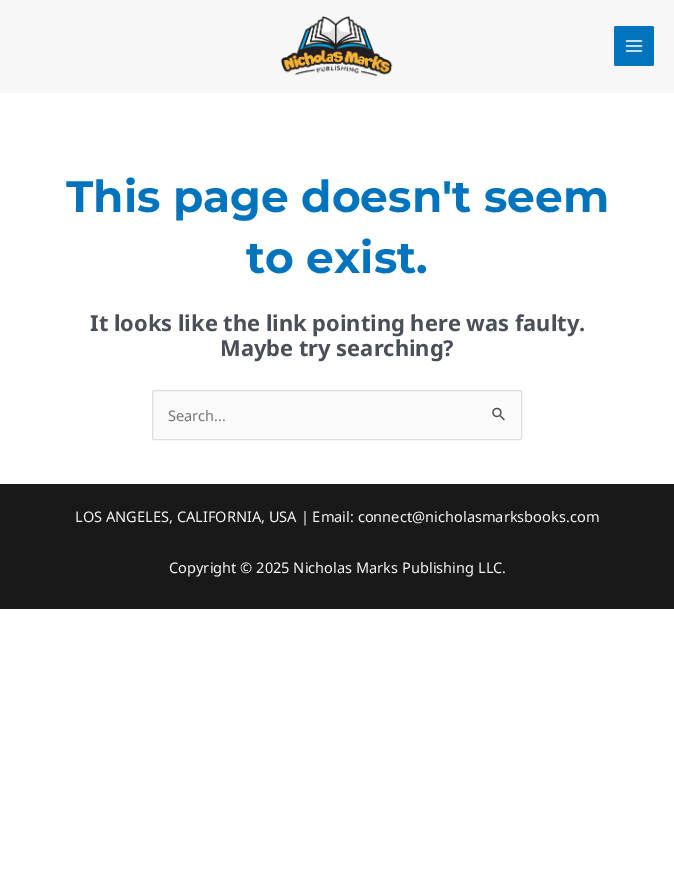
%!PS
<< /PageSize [674 869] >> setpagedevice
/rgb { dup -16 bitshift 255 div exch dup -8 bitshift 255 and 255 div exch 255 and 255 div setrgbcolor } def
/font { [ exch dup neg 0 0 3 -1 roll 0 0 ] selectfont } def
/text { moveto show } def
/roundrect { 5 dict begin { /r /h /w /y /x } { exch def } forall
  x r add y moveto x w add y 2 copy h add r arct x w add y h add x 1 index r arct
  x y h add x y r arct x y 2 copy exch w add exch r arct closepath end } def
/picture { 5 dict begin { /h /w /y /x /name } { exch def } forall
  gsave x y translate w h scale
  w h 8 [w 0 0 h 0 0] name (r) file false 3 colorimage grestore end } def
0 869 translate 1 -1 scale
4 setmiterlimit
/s1 { /Montserrat-Thin 44 font 16#0274BE rgb } def
/s2 { /NotoSans-Bold 21.9 font 16#4B4F58 rgb } def
/s3 { /NotoSans-Regular 14.6 font 16#757575 rgb } def
/s4 { /NotoSans-Regular 14.6 font 16#F7F7F7 rgb } def
16#FFFFFF rgb
0 0 674 869 rectfill
16#F7F7F7 rgb
0 0 674 93 rectfill
(pic1.raw) 280 16 113 61 picture
16#0274BE rgb
614 26 40 40 2 roundrect fill
(pic2.raw) 625 40 18 12 picture
s1
(This page doesn't seem) 66 212 text
(to exist.) 246 273 text
s2
(It looks like the link pointing here was faulty.) 90 331 text
(Maybe try searching?) 220 356 text
16#FAFAFA rgb
152.5 390.5 369 49 1.5 roundrect gsave fill grestore
16#DDDDDD rgb
stroke
s3
(Search...) 168 421 text
(pic3.raw) 492 407 13 14 picture
16#191919 rgb
0 484 674 125 rectfill
s4
(LOS ANGELES, CALIFORNIA, USA | Email: connect@nicholasmarksbooks.com) 75 522 text
(Copyright © 2025 Nicholas Marks Publishing LLC.) 169 573 text
showpage
